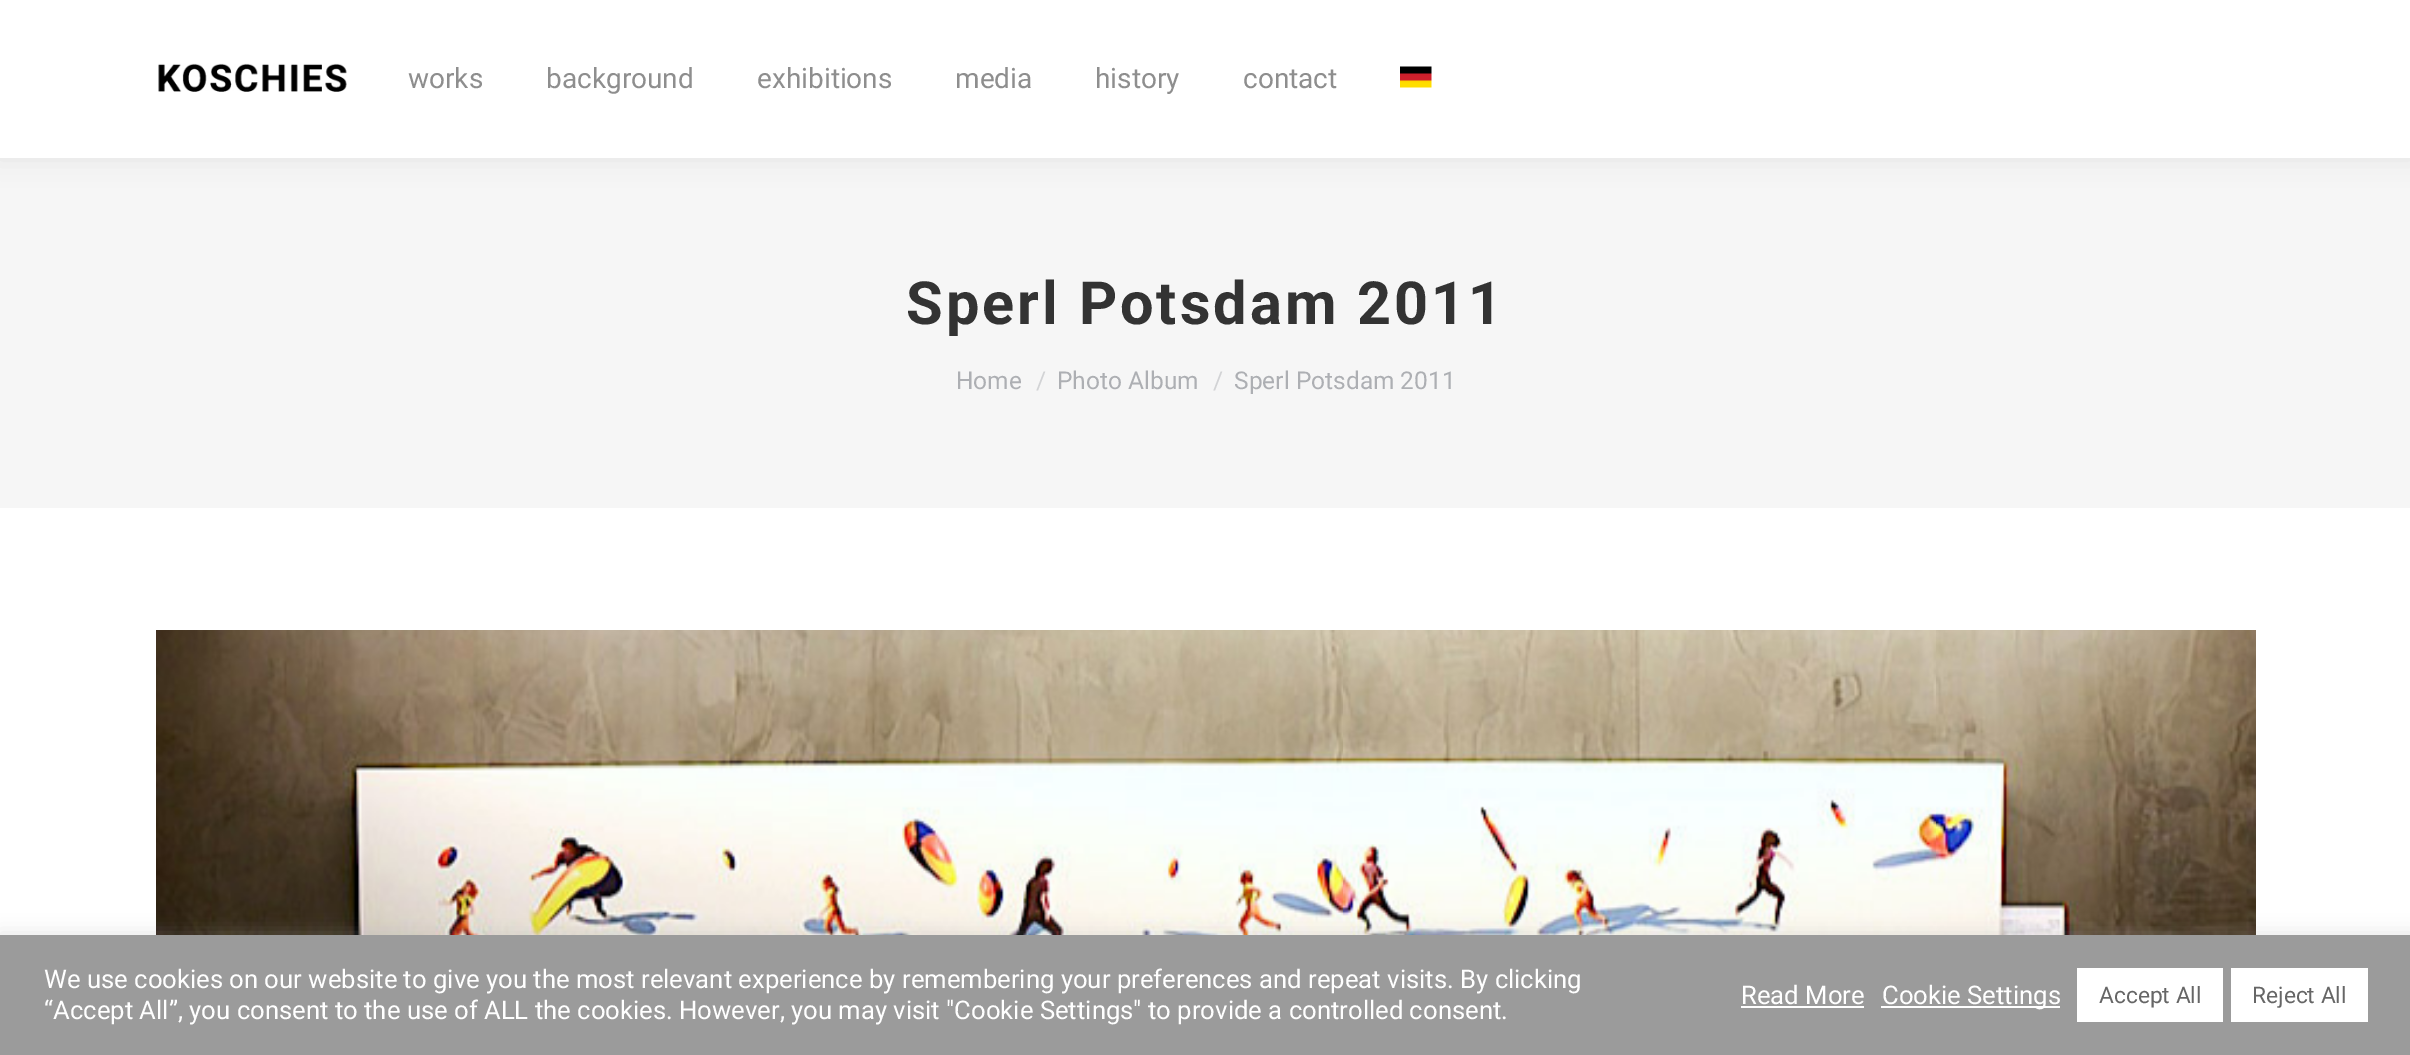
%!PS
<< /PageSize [2410 1055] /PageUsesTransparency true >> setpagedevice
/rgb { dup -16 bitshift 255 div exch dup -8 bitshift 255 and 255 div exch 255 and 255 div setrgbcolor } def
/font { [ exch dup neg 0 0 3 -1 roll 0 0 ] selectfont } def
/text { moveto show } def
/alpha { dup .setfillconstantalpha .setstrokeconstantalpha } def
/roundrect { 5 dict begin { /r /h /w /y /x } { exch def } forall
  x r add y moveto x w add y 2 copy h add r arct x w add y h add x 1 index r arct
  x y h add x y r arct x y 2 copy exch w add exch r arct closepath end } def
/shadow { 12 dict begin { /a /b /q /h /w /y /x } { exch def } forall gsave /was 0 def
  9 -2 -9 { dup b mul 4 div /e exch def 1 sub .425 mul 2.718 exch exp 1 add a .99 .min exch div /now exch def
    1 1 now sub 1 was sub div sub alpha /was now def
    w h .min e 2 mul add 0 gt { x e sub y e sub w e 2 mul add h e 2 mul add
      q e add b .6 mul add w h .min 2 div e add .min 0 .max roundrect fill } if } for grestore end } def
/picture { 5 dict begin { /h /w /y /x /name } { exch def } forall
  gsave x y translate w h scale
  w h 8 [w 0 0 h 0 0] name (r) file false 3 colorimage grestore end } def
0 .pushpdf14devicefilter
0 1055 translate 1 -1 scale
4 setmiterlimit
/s1 { /Roboto-Regular 28 font 16#8E8E8E rgb } def
/s2 { /Roboto-Regular 24.5 font 16#ADAFB3 rgb } def
/s3 { /Roboto-Regular 24.5 font 16#D2D3D5 rgb } def
/s4 { /Roboto-Regular 25.67 font 16#FFFFFF rgb } def
/s5 { /Roboto-Regular 22.75 font 16#666666 rgb } def
16#FFFFFF rgb
0 0 2410 1055 rectfill
16#F6F6F6 rgb
0 158 2410 350 rectfill
16#000000 rgb
-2 -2 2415 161 0 13 0.07 shadow
16#FFFFFF rgb
0 0 2410 158 rectfill
(pic1.raw) 158 63 189 29 picture
s1
(works) 408 88 text
(background) 546 88 text
(exhibitions) 757 88 text
(media) 955 88 text
(history) 1095 88 text
(contact) 1243 88 text
(pic2.raw) 1400 66 32 22 picture
/Roboto-Bold 59.5 font
16#333333 rgb
906 324 moveto 3 0 (Sperl Potsdam 2011) ashow
s2
(Home) 956 389 text
s3
(/) 1036 389 text
s2
(Photo Album) 1057 389 text
s3
(/) 1213 389 text
s2
(Sperl Potsdam 2011) 1234 389 text
(pic3.raw) 156 630 2100 305 picture
16#ACABAB rgb
0 933 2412 121 0 9 0.3 shadow
16#9B9B9B rgb
0 935 2410 120 rectfill
s4
(We use cookies on our website to give you the most relevant experience by remembering your preferences and repeat visits. By clicking) 44 988 text
(“Accept All”, you consent to the use of ALL the cookies. However, you may visit "Cookie Settings" to provide a controlled consent.) 44 1019 text
(Read More) 1741 1004 text
1741 1006 123 2 rectfill
1881 1006 179 2 rectfill
(Cookie Settings) 1882 1004 text
2077 968 146 54 rectfill
s5
(Accept All) 2099 1003 text
16#FFFFFF rgb
2231 968 137 54 rectfill
s5
(Reject All) 2252 1003 text
.poppdf14devicefilter showpage
